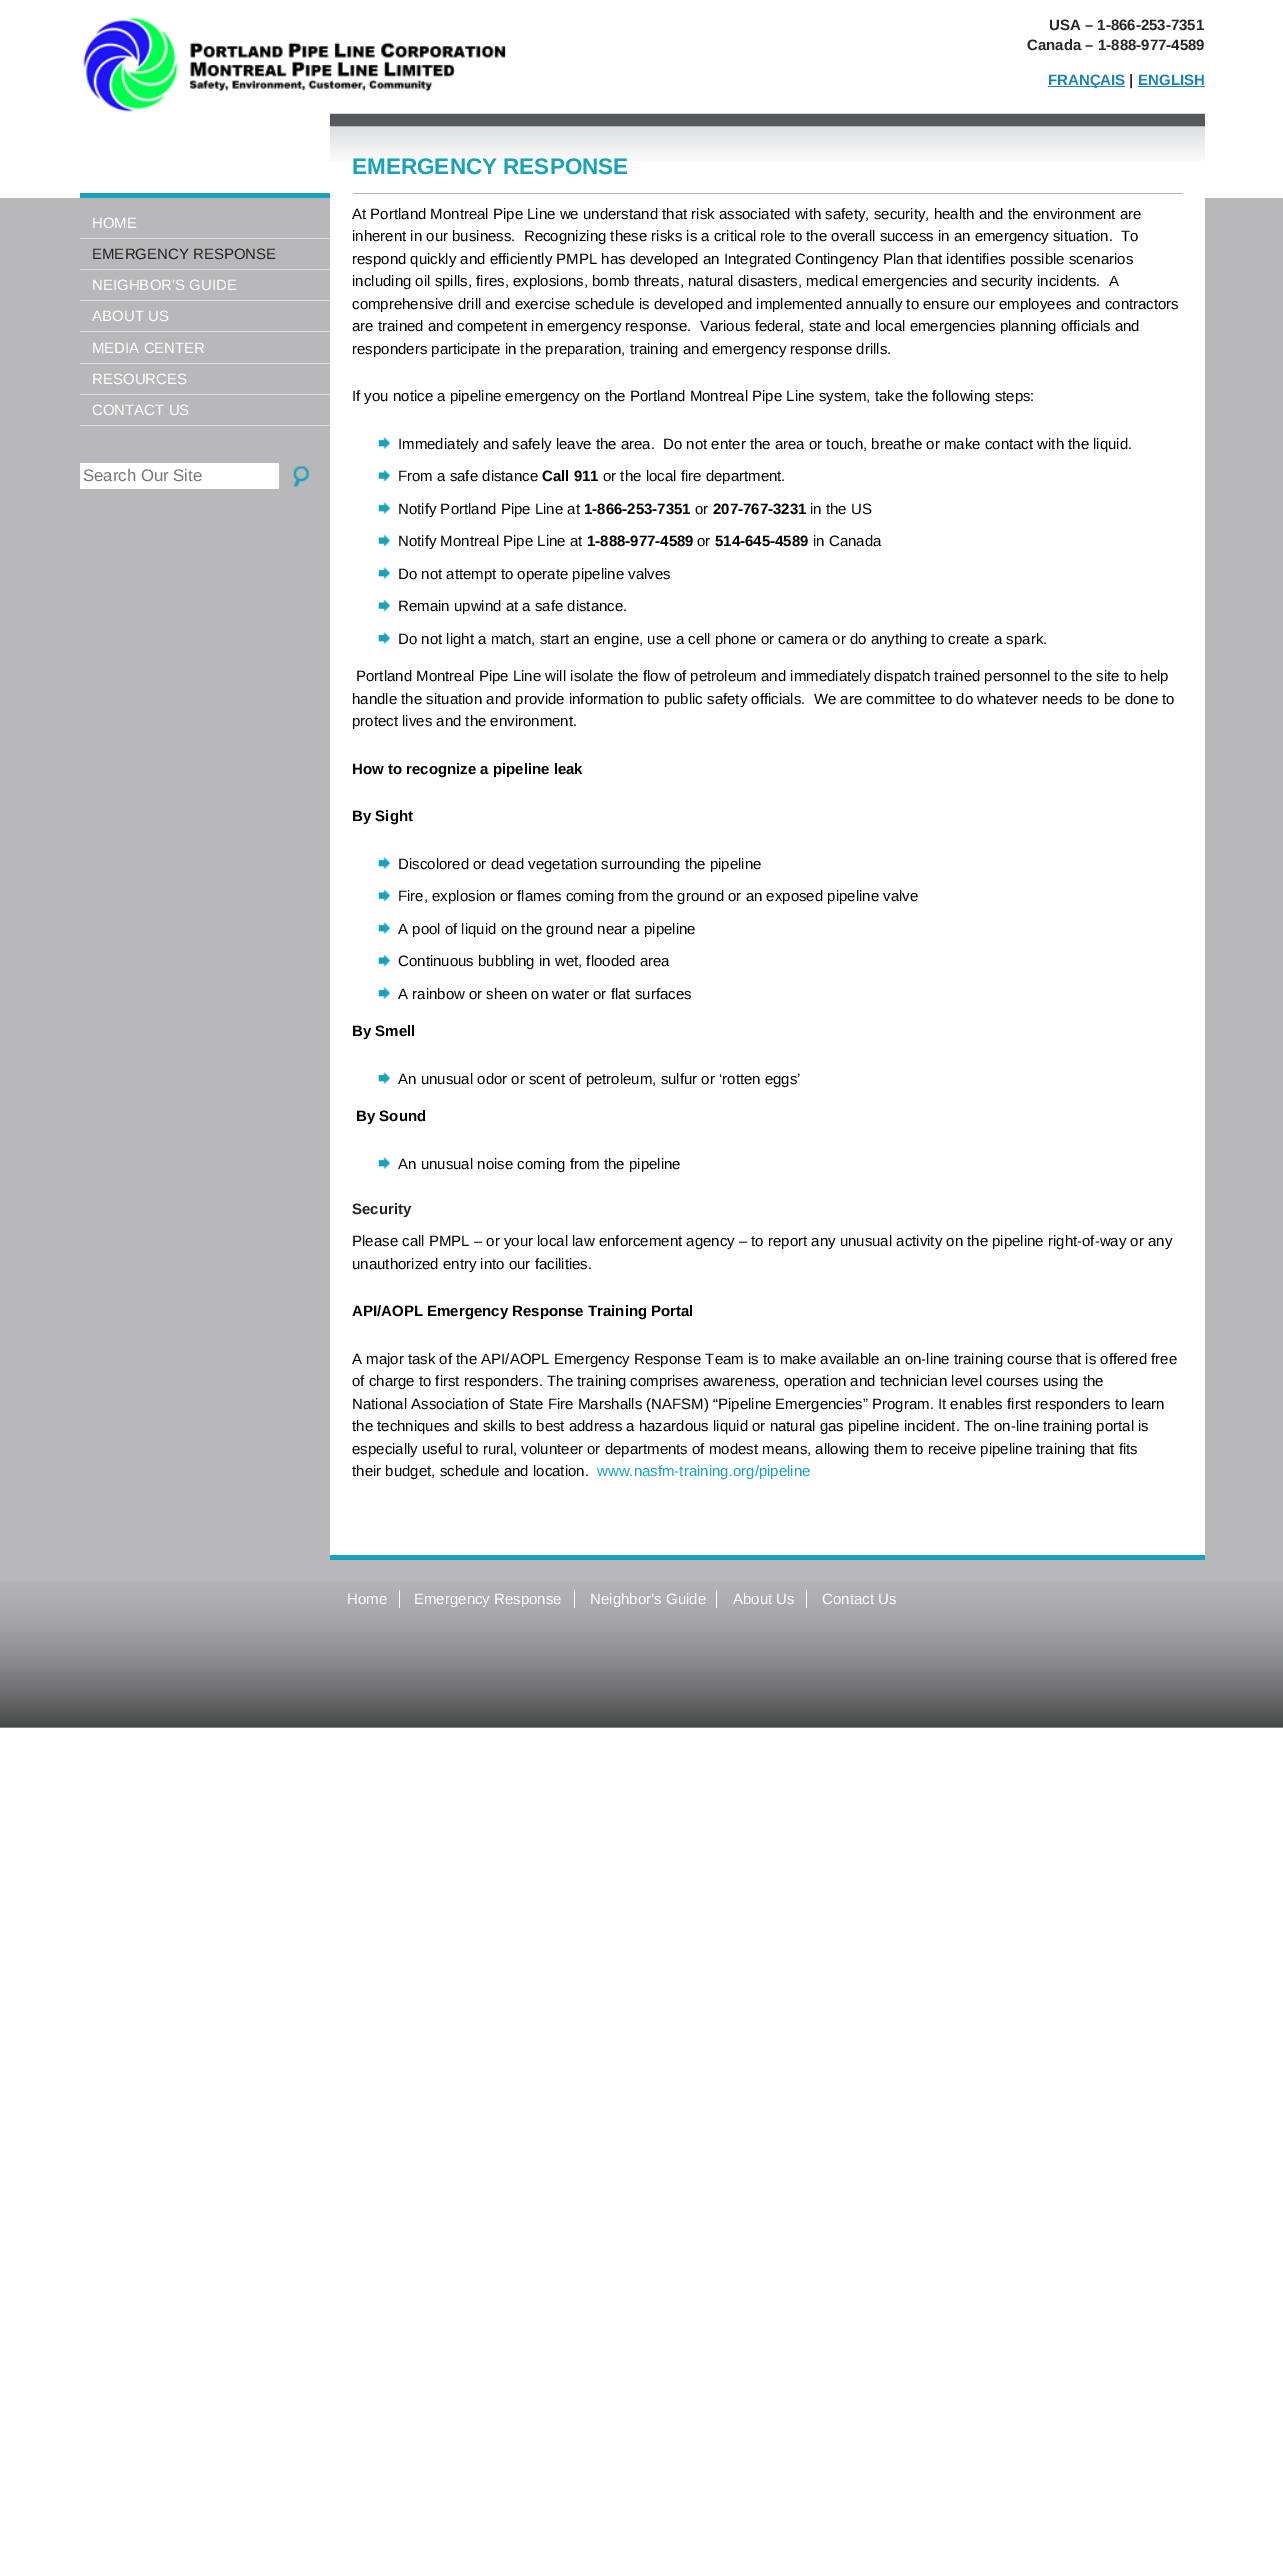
%!PS
<< /PageSize [1283 2552] >> setpagedevice
/rgb { dup -16 bitshift 255 div exch dup -8 bitshift 255 and 255 div exch 255 and 255 div setrgbcolor } def
/font { [ exch dup neg 0 0 3 -1 roll 0 0 ] selectfont } def
/text { moveto show } def
/picture { 5 dict begin { /h /w /y /x /name } { exch def } forall
  gsave x y translate w h scale
  w h 8 [w 0 0 h 0 0] name (r) file false 3 colorimage grestore end } def
0 2552 translate 1 -1 scale
4 setmiterlimit
/s1 { /LiberationSans-Bold 15 font 16#252525 rgb } def
/s2 { /LiberationSans-Bold 15 font 16#1883B8 rgb } def
/s3 { /LiberationSans-Regular 15 font 16#FFFFFF rgb } def
/s4 { /LiberationSans-Regular 15 font 16#252525 rgb } def
/s5 { /LiberationSans-Regular 16.75 font 16#777777 rgb } def
/s6 { /LiberationSans-Bold 22.5 font 16#18A3B8 rgb } def
/s7 { /LiberationSans-Regular 15 font 16#000000 rgb } def
/s8 { /LiberationSans-Bold 15 font 16#000000 rgb } def
/s9 { /LiberationSans-Regular 15 font 16#18A3B8 rgb } def
16#FFFFFF rgb
0 0 1283 2552 rectfill
(pic1.raw) 83 17 423 95 picture
s1
(USA – 1-866-253-7351) 1049 30 text
(Canada – 1-888-977-4589) 1027 50 text
16#1883B8 rgb
1048 86 77 1 rectfill
(FRANÇAIS) 1048 85 text
s1
(|) 1129 85 text
s2
(ENGLISH) 1138 85 text
1138 86 67 1 rectfill
16#B8B8BA rgb
0 198 1283 1530 rectfill
16#18A3B8 rgb
80 193 250 5 rectfill
16#DCDCDD rgb
80 238 250 1 rectfill
s3
(HOME) 92 228 text
16#DCDCDD rgb
80 269 250 1 rectfill
s4
(EMERGENCY RESPONSE) 92 259 text
16#DCDCDD rgb
80 300 250 1 rectfill
s3
(NEIGHBOR’S GUIDE) 92 290 text
16#DCDCDD rgb
80 331 250 1 rectfill
s3
(ABOUT US) 92 321 text
16#DCDCDD rgb
80 363 250 1 rectfill
s3
(MEDIA CENTER) 92 353 text
16#DCDCDD rgb
80 394 250 1 rectfill
s3
(RESOURCES) 92 384 text
16#DCDCDD rgb
80 425 250 1 rectfill
s3
(CONTACT US) 92 415 text
80 463 199 26 rectfill
s5
(Search Our Site) 83 481 text
(pic2.raw) 293 466 16 21 picture
16#FFFFFF rgb
330 198 875 1357 rectfill
(pic3.raw) 330 113 875 48 picture
16#18A3B8 rgb
330 1555 875 5 rectfill
16#B1B2B3 rgb
353 193 830 1 rectfill
s6
(EMERGENCY RESPONSE) 352 174 text
s7
(At Portland Montreal Pipe Line we understand that risk associated with safety, security, health and the environment are) 352 219 text
(inherent in our business.  Recognizing these risks is a critical role to the overall success in an emergency situation.  To) 352 241 text
(respond quickly and efficiently PMPL has developed an Integrated Contingency Plan that identifies possible scenarios) 352 264 text
(including oil spills, fires, explosions, bomb threats, natural disasters, medical emergencies and security incidents.  A) 352 286 text
(comprehensive drill and exercise schedule is developed and implemented annually to ensure our employees and contractors) 352 309 text
(are trained and competent in emergency response.  Various federal, state and local emergencies planning officials and) 352 331 text
(responders participate in the preparation, training and emergency response drills.) 352 354 text
(If you notice a pipeline emergency on the Portland Montreal Pipe Line system, take the following steps:) 352 401 text
(pic4.raw) 378 437 12 12 picture
(Immediately and safely leave the area.  Do not enter the area or touch, breathe or make contact with the liquid.) 398 449 text
(pic5.raw) 378 470 12 12 picture
(From a safe distance) 398 481 text
s8
(Call 911) 542 481 text
s7
(or the local fire department.) 603 481 text
(pic4.raw) 378 502 12 12 picture
(Notify Portland Pipe Line at) 398 514 text
s8
(1-866-253-7351) 584 514 text
s7
(or) 695 514 text
s8
(207-767-3231) 713 514 text
s7
(in the US) 810 514 text
(pic5.raw) 378 535 12 12 picture
(Notify Montreal Pipe Line at) 398 546 text
s8
(1-888-977-4589) 587 546 text
s7
(or) 697 546 text
s8
(514-645-4589) 715 546 text
s7
(in Canada) 813 546 text
(pic4.raw) 378 567 12 12 picture
(Do not attempt to operate pipeline valves) 398 579 text
(pic5.raw) 378 600 12 12 picture
(Remain upwind at a safe distance.) 398 611 text
(pic4.raw) 378 632 12 12 picture
(Do not light a match, start an engine, use a cell phone or camera or do anything to create a spark.) 398 644 text
(Portland Montreal Pipe Line will isolate the flow of petroleum and immediately dispatch trained personnel to the site to help) 356 681 text
(handle the situation and provide information to public safety officials.  We are committee to do whatever needs to be done to) 352 704 text
(protect lives and the environment.) 352 726 text
s8
(How to recognize a pipeline leak) 352 774 text
(By Sight) 352 821 text
(pic4.raw) 378 857 12 12 picture
s7
(Discolored or dead vegetation surrounding the pipeline) 398 869 text
(pic5.raw) 378 890 12 12 picture
(Fire, explosion or flames coming from the ground or an exposed pipeline valve) 398 901 text
(pic4.raw) 378 922 12 12 picture
(A pool of liquid on the ground near a pipeline) 398 934 text
(pic5.raw) 378 955 12 12 picture
(Continuous bubbling in wet, flooded area) 398 966 text
(pic4.raw) 378 987 12 12 picture
(A rainbow or sheen on water or flat surfaces) 398 999 text
s8
(By Smell) 352 1036 text
(pic4.raw) 378 1072 12 12 picture
s7
(An unusual odor or scent of petroleum, sulfur or ‘rotten eggs’) 398 1084 text
s8
(By Sound) 356 1121 text
(pic4.raw) 378 1157 12 12 picture
s7
(An unusual noise coming from the pipeline) 398 1169 text
s1
(Security) 352 1214 text
s7
(Please call PMPL – or your local law enforcement agency – to report any unusual activity on the pipeline right-of-way or any) 352 1246 text
(unauthorized entry into our facilities.) 352 1269 text
s8
(API/AOPL Emergency Response Training Portal) 352 1316 text
s7
(A major task of the API/AOPL Emergency Response Team is to make available an on-line training course that is offered free) 352 1364 text
(of charge to first responders. The training comprises awareness, operation and technician level courses using the) 352 1386 text
(National Association of State Fire Marshalls \(NAFSM\) “Pipeline Emergencies” Program. It enables first responders to learn) 352 1409 text
(the techniques and skills to best address a hazardous liquid or natural gas pipeline incident. The on-line training portal is) 352 1431 text
(especially useful to rural, volunteer or departments of modest means, allowing them to receive pipeline training that fits) 352 1454 text
(their budget, schedule and location.) 352 1476 text
s9
(www.nasfm-training.org/pipeline) 597 1476 text
(pic6.raw) 0 1581 1283 147 picture
s3
(Home) 347 1604 text
399 1590 1 18 rectfill
(Emergency Response) 414 1604 text
574 1590 1 18 rectfill
(Neighbor’s Guide) 590 1604 text
716 1590 1 18 rectfill
(About Us) 733 1604 text
806 1590 1 18 rectfill
(Contact Us) 822 1604 text
showpage
